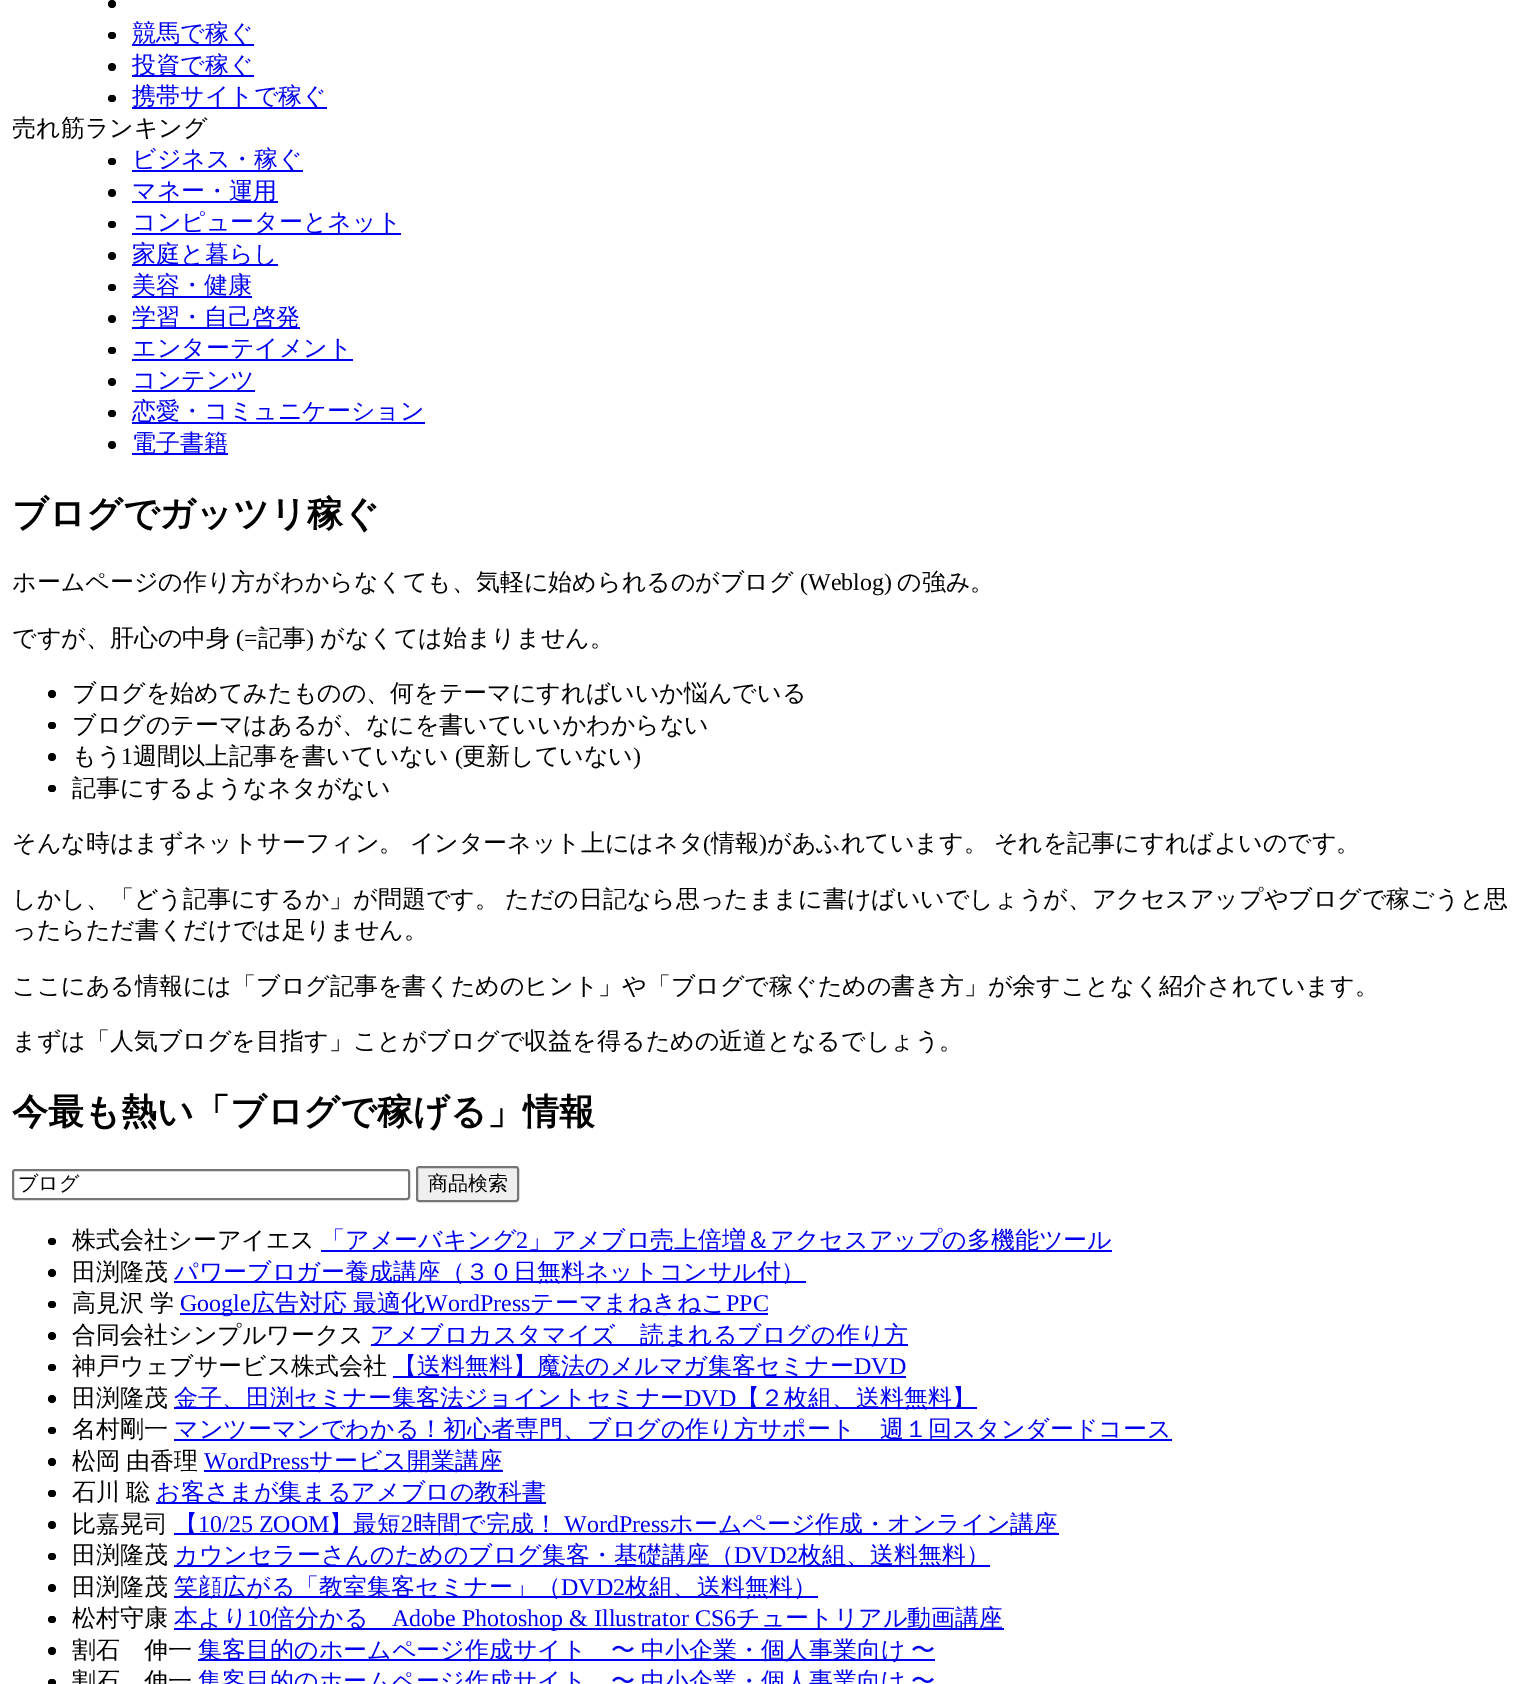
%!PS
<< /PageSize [1537 1684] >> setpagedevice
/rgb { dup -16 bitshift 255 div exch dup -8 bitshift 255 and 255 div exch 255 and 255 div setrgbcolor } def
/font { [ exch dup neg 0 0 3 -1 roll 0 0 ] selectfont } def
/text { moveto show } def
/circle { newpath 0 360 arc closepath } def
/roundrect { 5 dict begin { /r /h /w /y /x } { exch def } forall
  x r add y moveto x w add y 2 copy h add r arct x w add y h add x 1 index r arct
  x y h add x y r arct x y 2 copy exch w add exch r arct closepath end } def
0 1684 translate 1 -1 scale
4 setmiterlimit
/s1 { /WenQuanYiZenHei-Medium 24 font 16#0000EE rgb } def
/s2 { /WenQuanYiZenHei-Medium 24 font 16#000000 rgb } def
/s3 { /WenQuanYiZenHei-Bold 36 font 16#000000 rgb } def
/s4 { /LiberationSerif-Regular 24 font 16#000000 rgb } def
/s5 { /WenQuanYiZenHei-Medium 20 font 16#000000 rgb } def
/s6 { /LiberationSerif-Regular 24 font 16#0000EE rgb } def
16#FFFFFF rgb
0 0 1537 1684 rectfill
16#000000 rgb
112 4 4 circle fill
108 32 8 7 3.5 roundrect fill
16#0000EE rgb
132 44 122 2 rectfill
s1
(競馬で稼ぐ) 132 41 text
16#000000 rgb
112 67 4 circle fill
16#0000EE rgb
132 75 122 2 rectfill
(投資で稼ぐ) 132 73 text
16#000000 rgb
108 95 8 7 3.5 roundrect fill
16#0000EE rgb
132 107 195 2 rectfill
(携帯サイトで稼ぐ) 132 104 text
s2
(売れ筋ランキング) 12 136 text
108 158 8 7 3.5 roundrect fill
16#0000EE rgb
132 170 171 2 rectfill
(ビジネス・稼ぐ) 132 167 text
16#000000 rgb
112 193 4 circle fill
16#0000EE rgb
132 201 146 2 rectfill
(マネー・運用) 132 199 text
16#000000 rgb
108 221 8 7 3.5 roundrect fill
16#0000EE rgb
132 233 269 2 rectfill
(コンピューターとネット) 132 230 text
16#000000 rgb
112 256 4 circle fill
16#0000EE rgb
132 264 146 2 rectfill
(家庭と暮らし) 132 262 text
16#000000 rgb
108 284 8 7 3.5 roundrect fill
16#0000EE rgb
132 296 120 2 rectfill
(美容・健康) 132 293 text
16#000000 rgb
112 319 4 circle fill
16#0000EE rgb
132 327 168 2 rectfill
(学習・自己啓発) 132 325 text
16#000000 rgb
108 347 8 7 3.5 roundrect fill
16#0000EE rgb
132 359 221 2 rectfill
(エンターテイメント) 132 356 text
16#000000 rgb
112 382 4 circle fill
16#0000EE rgb
132 390 123 2 rectfill
(コンテンツ) 132 388 text
16#000000 rgb
108 410 8 7 3.5 roundrect fill
16#0000EE rgb
132 422 293 2 rectfill
(恋愛・コミュニケーション) 132 419 text
16#000000 rgb
112 445 4 circle fill
16#0000EE rgb
132 453 96 2 rectfill
(電子書籍) 132 451 text
s3
(ブログでガッツリ稼ぐ) 12 526 text
s2
(ホームページの作り方がわからなくても、気軽に始められるのがブログ) 12 590 text
s4
(\(Weblog\)) 800 590 text
s2
(の強み。) 897 590 text
(ですが、肝心の中身) 12 646 text
s4
(\(=) 236 646 text
s2
(記事) 258 646 text
s4
(\)) 306 646 text
s2
(がなくては始まりません。) 320 646 text
52 694 4 circle fill
(ブログを始めてみたものの、何をテーマにすればいいか悩んでいる) 72 701 text
48 722 8 7 3.5 roundrect fill
(ブログのテーマはあるが、なにを書いていいかわからない) 72 733 text
52 757 4 circle fill
(もう) 72 764 text
s4
(1) 121 764 text
s2
(週間以上記事を書いていない) 133 764 text
s4
(\() 455 764 text
s2
(更新していない) 462 764 text
s4
(\)) 633 764 text
48 785 8 7 3.5 roundrect fill
s2
(記事にするようなネタがない) 72 796 text
12 851 moveto -1 0 32 (そんな時はまずネットサーフィン。 インターネット上にはネタ) widthshow
s4
(\() 703 851 text
s2
(情報) 711 851 text
s4
(\)) 759 851 text
/WenQuanYiZenHei-Medium 24 font
767 851 moveto -1 0 32 (があふれています。 それを記事にすればよいのです。) widthshow
12 907 moveto -1 0 32 (しかし、「どう記事にするか」が問題です。 ただの日記なら思ったままに書けばいいでしょうが、アクセスアップやブログで稼ごうと思) widthshow
(ったらただ書くだけでは足りません。) 12 938 text
(ここにある情報には「ブログ記事を書くためのヒント」や「ブログで稼ぐための書き方」が余すことなく紹介されています。) 12 994 text
(まずは「人気ブログを目指す」ことがブログで収益を得るための近道となるでしょう。) 12 1049 text
s3
(今最も熱い「ブログで稼げる」情報) 12 1124 text
16#767676 rgb
2 setlinewidth
13 1170 396 29 2 roundrect stroke
s5
(ブログ) 18 1190 text
16#EFEFEF rgb
417 1167 101 34 2 roundrect gsave fill grestore
16#767676 rgb
stroke
s5
(商品検索) 428 1190 text
48 1238 8 7 3.5 roundrect fill
s2
(株式会社シーアイエス) 72 1248 text
16#0000EE rgb
321 1250 791 2 rectfill
(「アメーバキング) 321 1248 text
s6
(2) 516 1248 text
s1
(」アメブロ売上倍増＆アクセスアップの多機能ツール) 528 1248 text
16#000000 rgb
52 1273 4 circle fill
(田渕隆茂) 72 1280 text
16#0000EE rgb
174 1281 632 2 rectfill
(パワーブロガー養成講座（３０日無料ネットコンサル付）) 174 1280 text
16#000000 rgb
48 1301 8 7 3.5 roundrect fill
72 1311 moveto -1 0 32 (高見沢 学) widthshow
16#0000EE rgb
180 1313 588 2 rectfill
s6
(Google) 180 1311 text
/WenQuanYiZenHei-Medium 24 font
251 1311 moveto -1 0 32 (広告対応 最適化) widthshow
s6
(WordPress) 425 1311 text
s1
(テーマまねきねこ) 530 1311 text
s6
(PPC) 726 1311 text
16#000000 rgb
52 1336 4 circle fill
s2
(合同会社シンプルワークス) 72 1343 text
16#0000EE rgb
371 1344 537 2 rectfill
(アメブロカスタマイズ　読まれるブログの作り方) 370 1343 text
16#000000 rgb
48 1364 8 7 3.5 roundrect fill
(神戸ウェブサービス株式会社) 72 1374 text
16#0000EE rgb
393 1376 513 2 rectfill
(【送料無料】魔法のメルマガ集客セミナー) 393 1374 text
s6
(DVD) 854 1374 text
16#000000 rgb
52 1399 4 circle fill
s2
(田渕隆茂) 72 1406 text
16#0000EE rgb
174 1407 803 2 rectfill
(金子、田渕セミナー集客法ジョイントセミナー) 174 1406 text
s6
(DVD) 684 1406 text
s1
(【２枚組、送料無料】) 736 1406 text
16#000000 rgb
48 1427 8 7 3.5 roundrect fill
(名村剛一) 72 1437 text
16#0000EE rgb
174 1439 998 2 rectfill
(マンツーマンでわかる！初心者専門、ブログの作り方サポート　週１回スタンダードコース) 174 1437 text
16#000000 rgb
52 1462 4 circle fill
72 1469 moveto -1 0 32 (松岡 由香理) widthshow
s6
(WordPress) 204 1469 text
204 1470 299 2 rectfill
s1
(サービス開業講座) 309 1469 text
16#000000 rgb
48 1490 8 7 3.5 roundrect fill
72 1500 moveto -1 0 32 (石川 聡) widthshow
16#0000EE rgb
156 1502 390 2 rectfill
(お客さまが集まるアメブロの教科書) 156 1500 text
16#000000 rgb
52 1525 4 circle fill
(比嘉晃司) 72 1532 text
16#0000EE rgb
174 1533 885 2 rectfill
(【) 174 1532 text
s6
(10/25 ZOOM) 198 1532 text
s1
(】最短) 329 1532 text
s6
(2) 401 1532 text
s1
(時間で完成！) 413 1532 text
s6
(WordPress) 564 1532 text
s1
(ホームページ作成・オンライン講座) 669 1532 text
16#000000 rgb
48 1553 8 7 3.5 roundrect fill
(田渕隆茂) 72 1563 text
16#0000EE rgb
174 1565 816 2 rectfill
(カウンセラーさんのためのブログ集客・基礎講座（) 174 1563 text
s6
(DVD2) 734 1563 text
s1
(枚組、送料無料）) 798 1563 text
16#000000 rgb
52 1588 4 circle fill
(田渕隆茂) 72 1595 text
16#0000EE rgb
174 1596 644 2 rectfill
(笑顔広がる「教室集客セミナー」（) 174 1595 text
s6
(DVD2) 561 1595 text
s1
(枚組、送料無料）) 625 1595 text
16#000000 rgb
48 1616 8 7 3.5 roundrect fill
(松村守康) 72 1626 text
16#0000EE rgb
174 1628 830 2 rectfill
(本より) 174 1626 text
s6
(10) 247 1626 text
s1
(倍分かる) 271 1626 text
s6
(Adobe Photoshop & Illustrator CS6) 392 1626 text
s1
(チュートリアル動画講座) 736 1626 text
16#000000 rgb
52 1651 4 circle fill
(割石　伸一) 72 1658 text
16#0000EE rgb
198 1659 737 2 rectfill
198 1658 moveto -1 0 32 (集客目的のホームページ作成サイト　〜 中小企業・個人事業向け 〜) widthshow
16#000000 rgb
48 1679 8 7 3.5 roundrect fill
(割石　伸一) 72 1689 text
16#0000EE rgb
198 1689 moveto -1 0 32 (集客目的のホームページ作成サイト　〜 中小企業・個人事業向け 〜) widthshow
showpage
